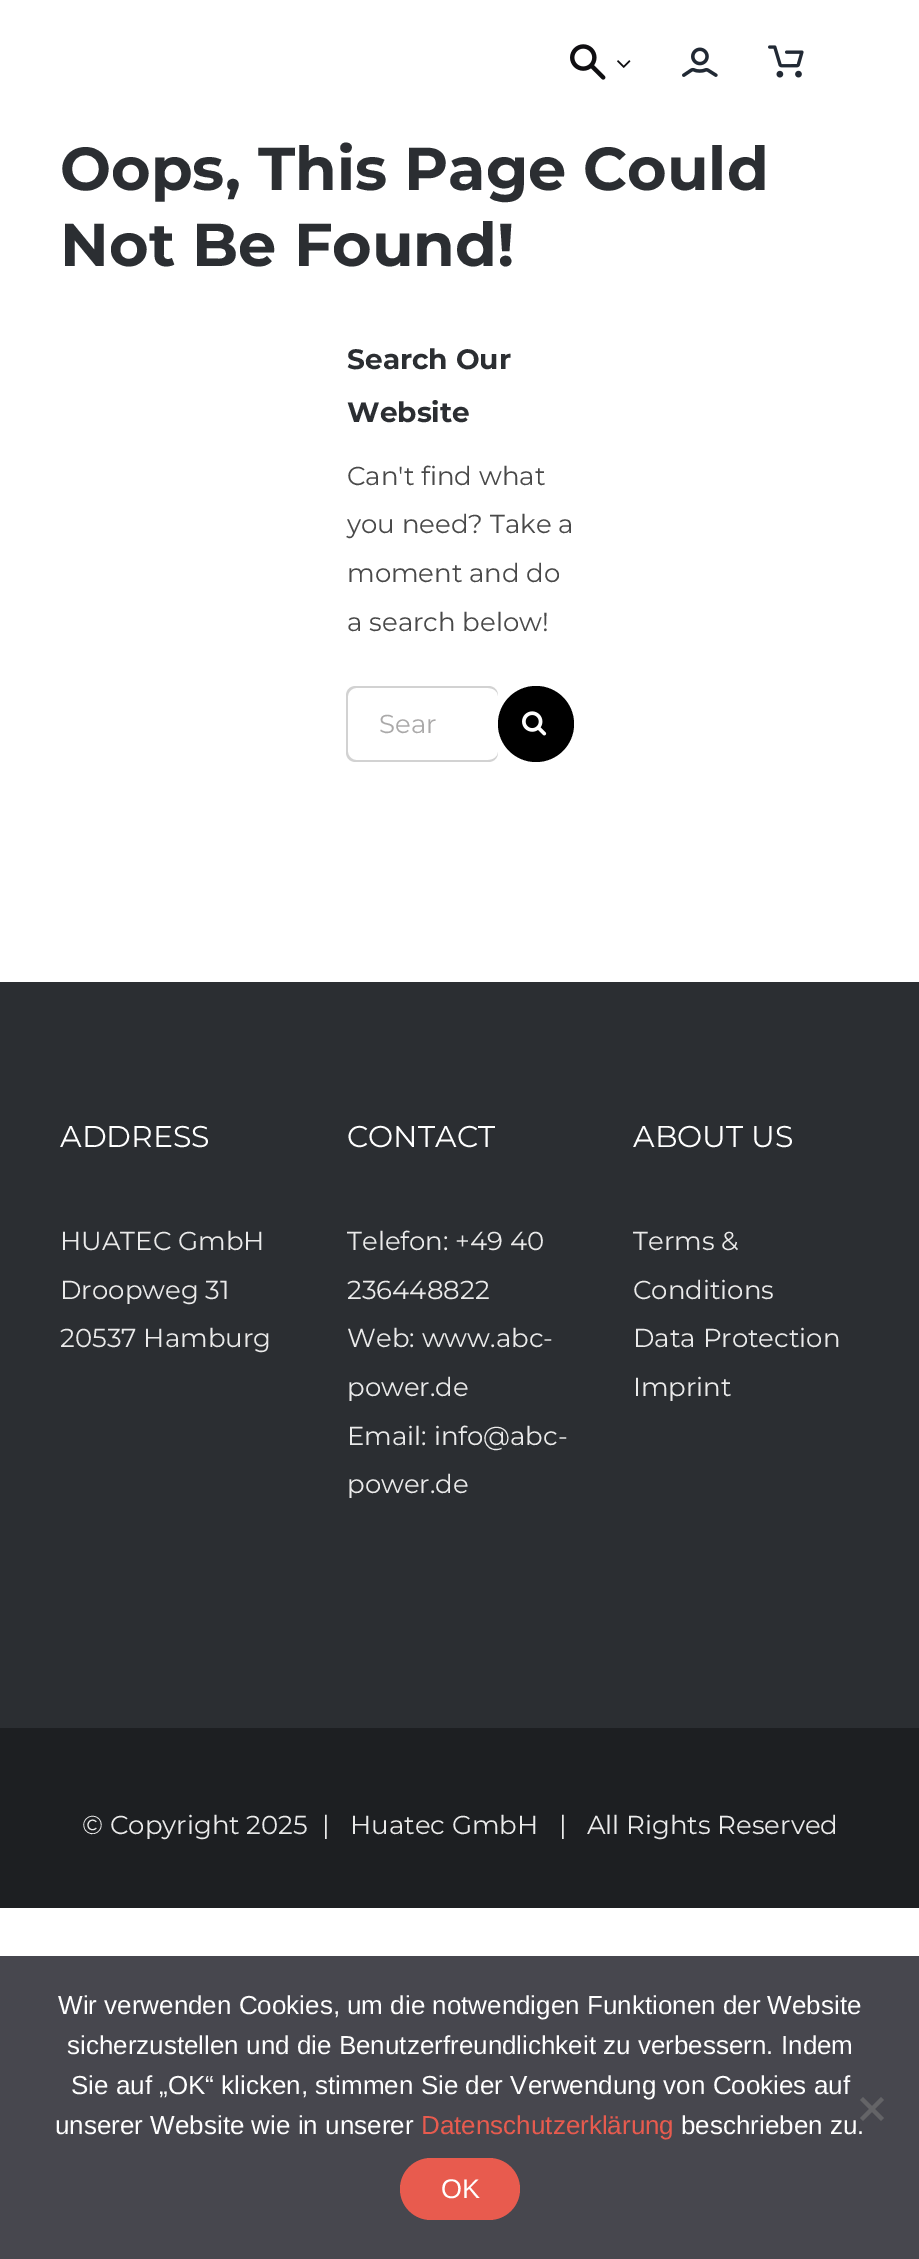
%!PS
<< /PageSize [919 2259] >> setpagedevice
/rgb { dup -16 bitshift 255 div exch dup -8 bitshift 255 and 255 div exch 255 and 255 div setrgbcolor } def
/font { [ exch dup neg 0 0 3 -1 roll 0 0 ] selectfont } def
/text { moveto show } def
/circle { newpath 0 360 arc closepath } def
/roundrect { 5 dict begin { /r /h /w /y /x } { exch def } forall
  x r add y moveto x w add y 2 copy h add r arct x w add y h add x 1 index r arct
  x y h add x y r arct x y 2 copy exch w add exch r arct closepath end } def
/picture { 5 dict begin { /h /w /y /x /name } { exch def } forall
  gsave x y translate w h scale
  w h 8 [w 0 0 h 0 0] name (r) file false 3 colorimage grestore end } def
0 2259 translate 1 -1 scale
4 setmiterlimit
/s1 { /Montserrat-Bold 60.5 font 16#2B2E32 rgb } def
/s2 { /Montserrat-Bold 28 font 16#2B2E32 rgb } def
/s3 { /Montserrat-Regular 26 font 16#494949 rgb } def
/s4 { /Montserrat-Regular 26 font 16#AAA9A9 rgb } def
/s5 { /Montserrat-Regular 30 font 16#FFFFFF rgb } def
/s6 { /Montserrat-Regular 26 font 16#EAEAEA rgb } def
/s7 { /LiberationSans-Regular 26 font 16#FFFFFF rgb } def
/s8 { /LiberationSans-Regular 26 font 16#E85B4E rgb } def
/s9 { /LiberationSans-Regular 27 font 16#FFFFFF rgb } def
16#FFFFFF rgb
0 0 919 2259 rectfill
(pic1.raw) 570 44 36 36 picture
(pic2.raw) 617 60 14 8 picture
(pic3.raw) 682 47 36 30 picture
(pic4.raw) 768 45 36 33 picture
s1
(Oops, This Page Could) 60 190 text
(Not Be Found!) 60 266 text
s2
(Search Our) 347 369 text
(Website) 347 422 text
s3
(Can't find what) 347 485 text
(you need? Take a) 347 533 text
(moment and do) 347 582 text
(a search below!) 347 631 text
16#D2D2D2 rgb
356 686 moveto 488 686 lineto 494 686 498 690 498 696 curveto 498 752 lineto 498 758 494 762 488 762 curveto 356 762 lineto 350 762 346 758 346 752 curveto 346 696 lineto 346 690 350 686 356 686 curveto closepath 356 688 moveto 488 688 lineto 494 688 498 692 498 696 curveto 498 752 lineto 498 756 494 760 488 760 curveto 356 760 lineto 352 760 348 756 348 752 curveto 348 696 lineto 348 692 352 688 356 688 curveto closepath eofill
s4
(Sear) 379 733 text
16#000000 rgb
536 724 38 circle fill
(pic5.raw) 522 711 25 25 picture
16#2B2E32 rgb
0 982 919 746 rectfill
s5
(ADDRESS) 60 1147 text
s6
(HUATEC GmbH) 60 1250 text
(Droopweg 31) 60 1299 text
(20537 Hamburg) 60 1347 text
s5
(CONTACT) 347 1147 text
s6
(Telefon: +49 40) 347 1250 text
(236448822) 347 1299 text
(Web: www.abc-) 347 1347 text
(power.de) 347 1396 text
(Email: info@abc-) 347 1445 text
(power.de) 347 1493 text
s5
(ABOUT US) 633 1147 text
s6
(Terms &) 633 1250 text
(Conditions) 633 1299 text
(Data Protection) 633 1347 text
(Imprint) 633 1396 text
16#1D1F22 rgb
0 1728 919 180 rectfill
s6
(© Copyright 2025) 82 1834 text
(|   Huatec GmbH   |   All Rights Reserved) 322 1834 text
16#47474E rgb
0 1956 919 303 rectfill
s7
(Wir verwenden Cookies, um die notwendigen Funktionen der Website) 58 2014 text
(sicherzustellen und die Benutzerfreundlichkeit zu verbessern. Indem) 67 2054 text
(Sie auf „OK“ klicken, stimmen Sie der Verwendung von Cookies auf) 71 2094 text
(unserer Website wie in unserer) 55 2134 text
s8
(Datenschutzerklärung) 421 2134 text
s7
(beschrieben zu.) 681 2134 text
16#646467 rgb
881 2097 moveto 884 2100 lineto 863 2121 lineto 860 2118 lineto closepath fill
860 2100 moveto 863 2097 lineto 884 2118 lineto 881 2121 lineto closepath fill
16#E85B4E rgb
400 2158 120 62 31 roundrect fill
s9
(OK) 441 2198 text
showpage
